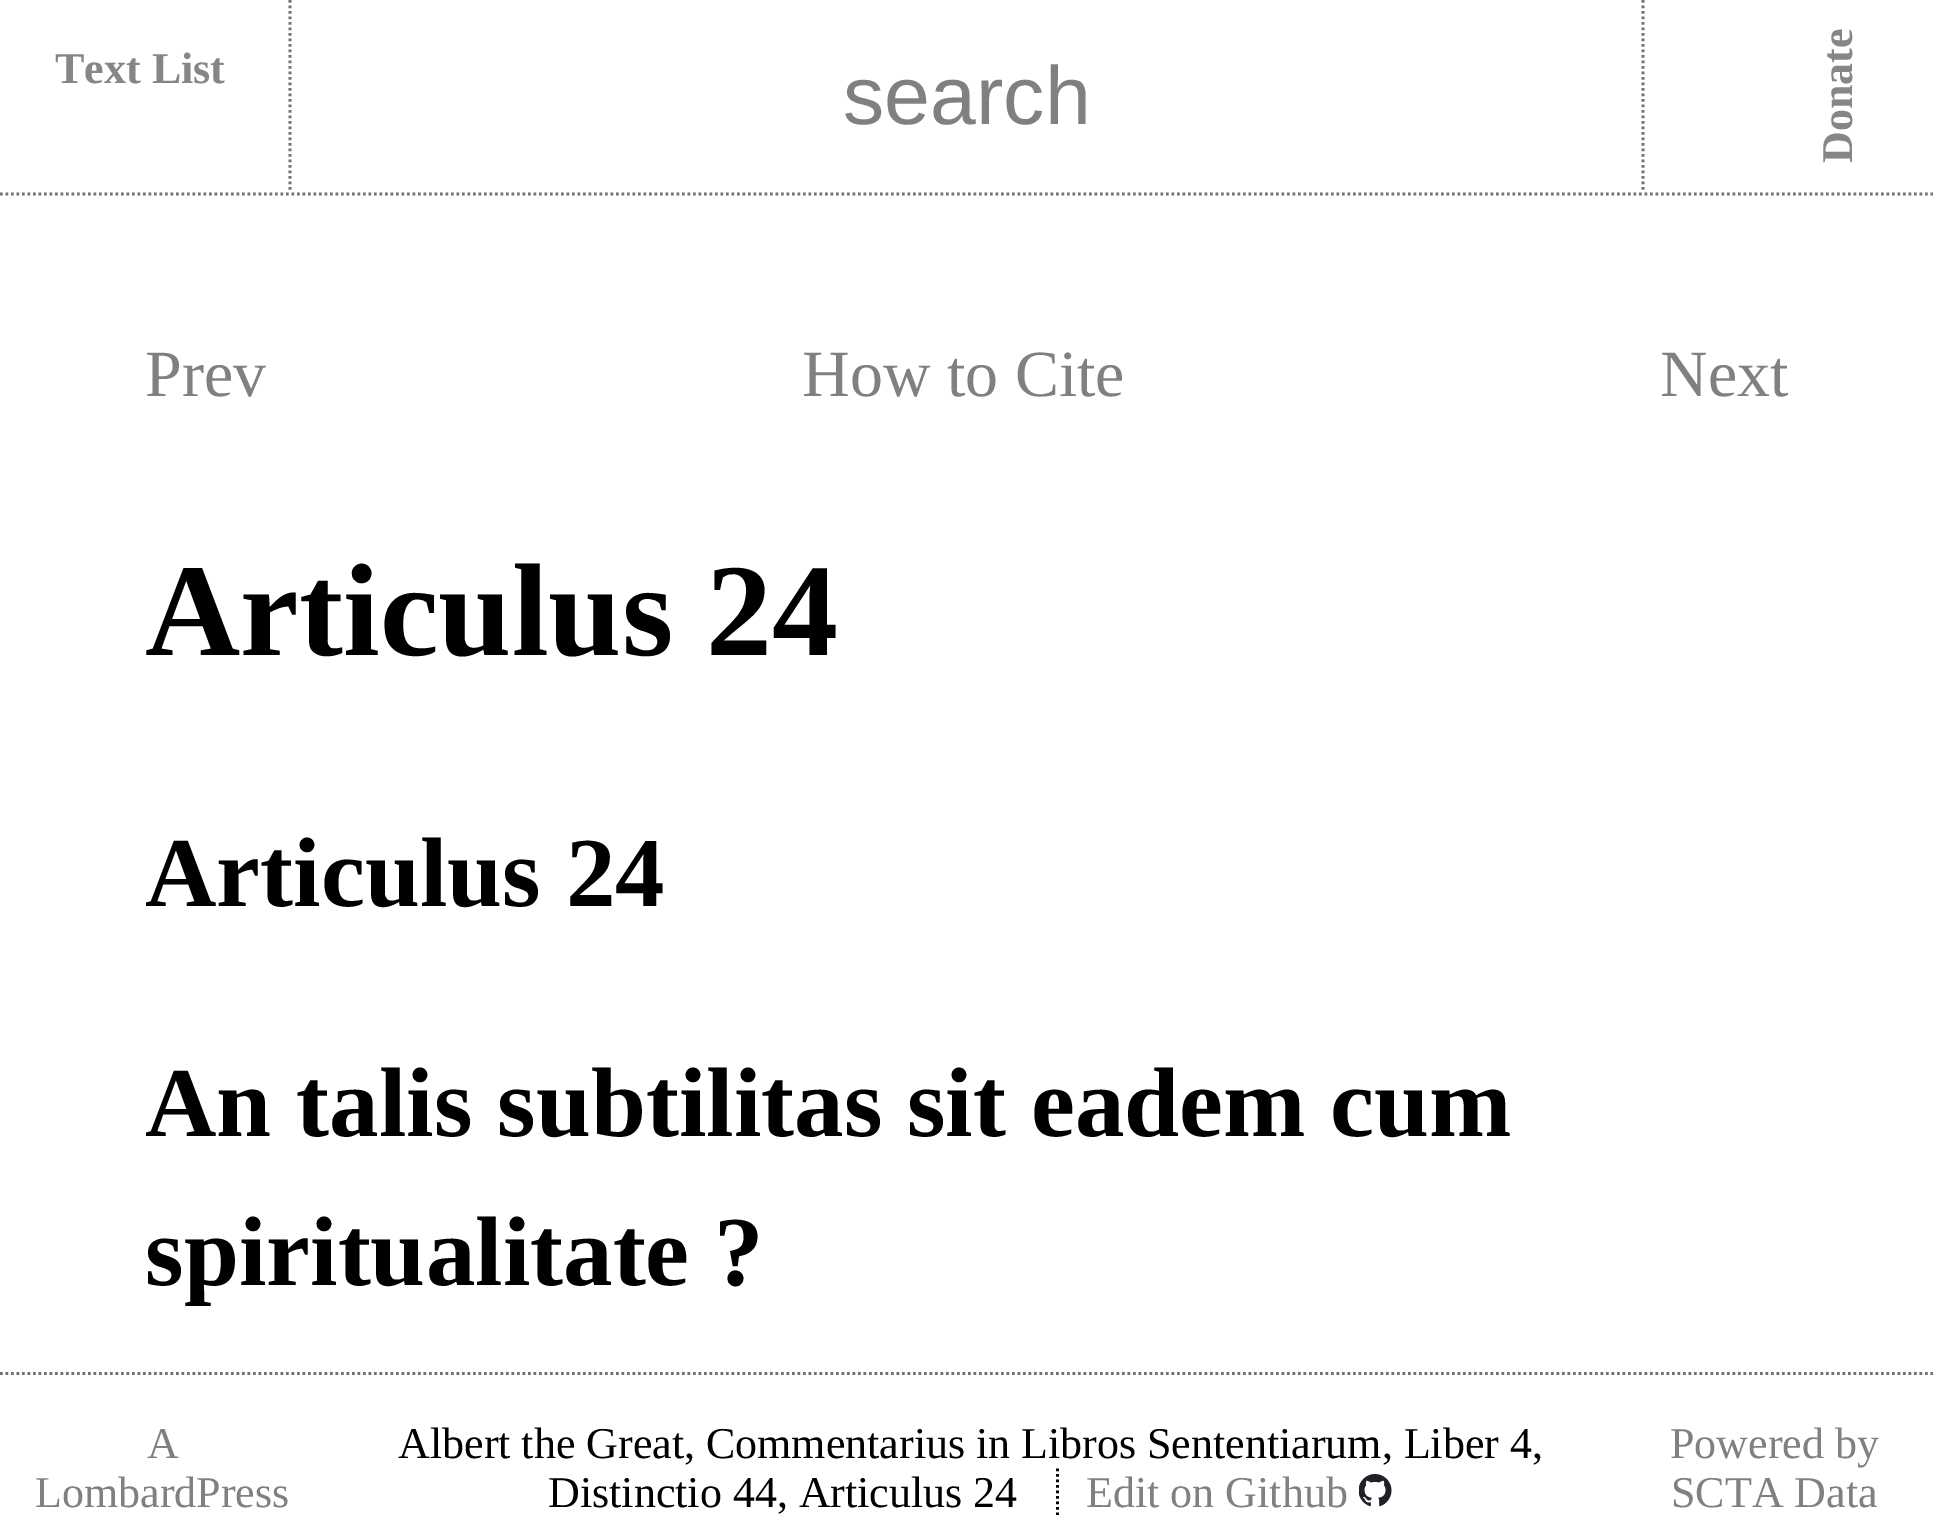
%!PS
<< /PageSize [1933 1529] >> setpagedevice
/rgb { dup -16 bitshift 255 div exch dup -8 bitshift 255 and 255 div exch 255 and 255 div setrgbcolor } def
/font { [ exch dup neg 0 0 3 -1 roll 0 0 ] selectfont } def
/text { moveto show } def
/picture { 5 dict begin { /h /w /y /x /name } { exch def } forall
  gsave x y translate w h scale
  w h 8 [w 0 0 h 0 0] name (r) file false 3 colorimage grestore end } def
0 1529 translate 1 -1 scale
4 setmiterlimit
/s1 { /LiberationSerif-Bold 44 font 16#868686 rgb } def
/s2 { /LiberationSans-Regular 82.5 font 16#808080 rgb } def
/s3 { /LiberationSerif-Regular 66 font 16#808080 rgb } def
/s4 { /LiberationSerif-Bold 132 font 16#000000 rgb } def
/s5 { /LiberationSerif-Bold 99 font 16#000000 rgb } def
/s6 { /LiberationSerif-Regular 44 font 16#808080 rgb } def
/s7 { /LiberationSerif-Regular 44 font 16#000000 rgb } def
16#FFFFFF rgb
0 0 1933 1529 rectfill
16#747474 rgb
2.8 setlinewidth
[2.75 2.75] 0 setdash
0 194 moveto 1933 194 lineto stroke
290 0 moveto 290 192.5 lineto stroke
s1
(Text List) 55 83 text
s2
(search) 843 124 text
16#747474 rgb
1643 0 moveto 1643 192.5 lineto stroke
/LiberationSerif-Bold 44 font
16#868686 rgb
gsave 1852 163 translate -90 rotate 0 0 moveto (Donate) show grestore
s3
(Prev) 145 396 text
(How to Cite) 802 396 text
(Next) 1660 396 text
s4
(Articulus 24) 145 655 text
s5
(Articulus 24) 145 906 text
(An talis subtilitas sit eadem cum) 145 1136 text
(spiritualitate ?) 145 1285 text
16#6F6F6F rgb
0 1373.5 moveto 1933 1373.5 lineto stroke
s6
(A) 147 1458 text
(LombardPress) 35 1507 text
s7
(Albert the Great, Commentarius in Libros Sententiarum, Liber 4,) 398 1458 text
(Distinctio 44, Articulus 24) 548 1507 text
s6
(Edit on Github) 1086 1507 text
16#030303 rgb
1057.5 1468.5 moveto 1057.5 1515 lineto stroke
(pic1.raw) 1359 1474 33 33 picture
s6
(Powered by) 1670 1458 text
(SCTA Data) 1671 1507 text
showpage
